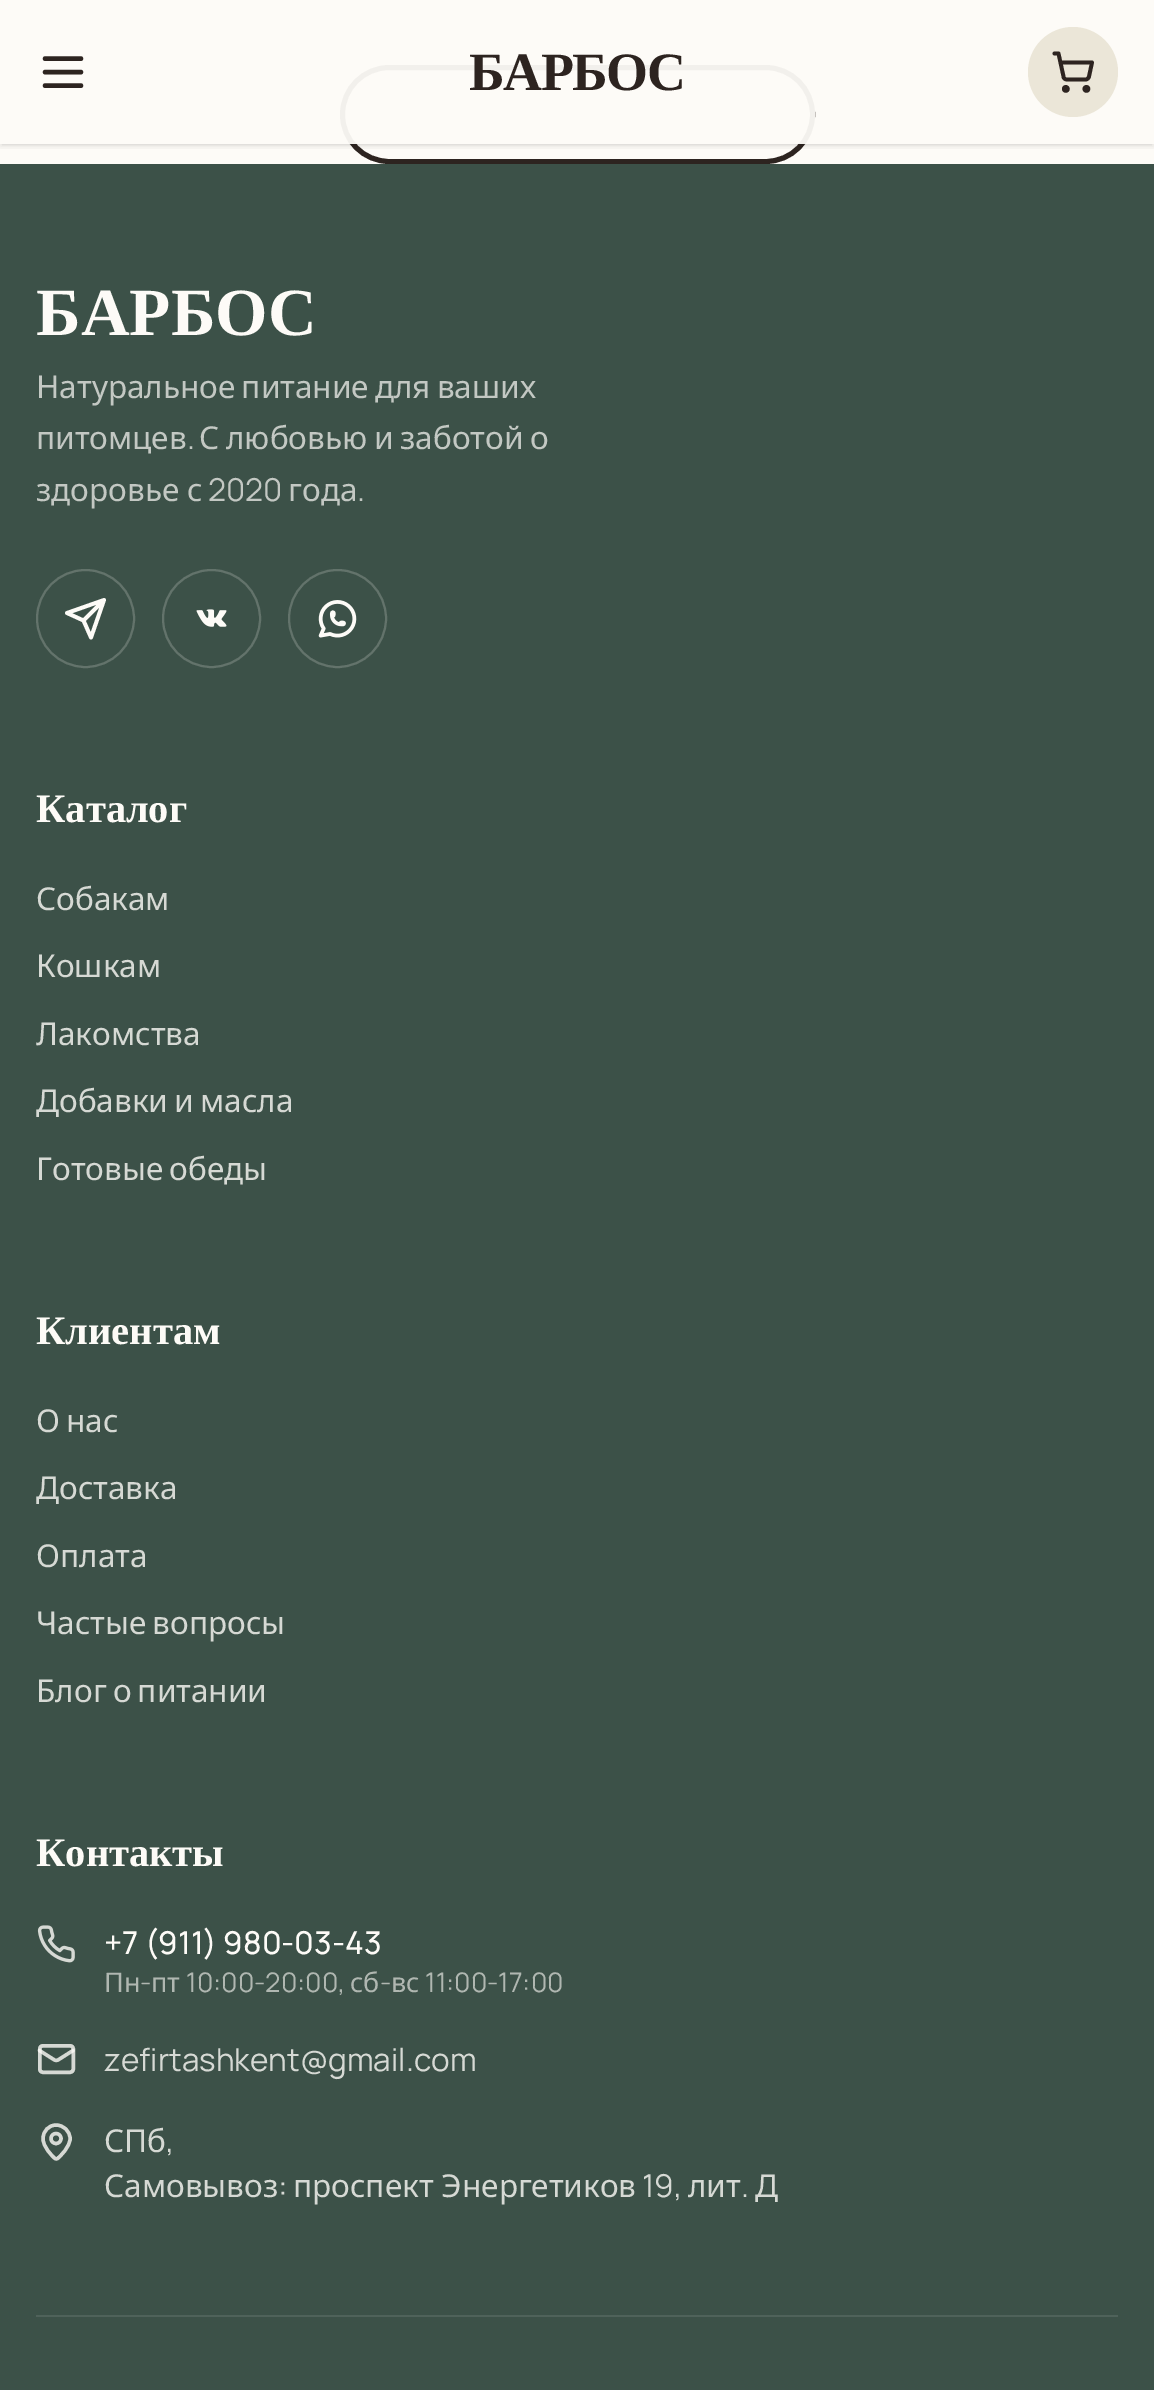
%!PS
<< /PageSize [1154 2390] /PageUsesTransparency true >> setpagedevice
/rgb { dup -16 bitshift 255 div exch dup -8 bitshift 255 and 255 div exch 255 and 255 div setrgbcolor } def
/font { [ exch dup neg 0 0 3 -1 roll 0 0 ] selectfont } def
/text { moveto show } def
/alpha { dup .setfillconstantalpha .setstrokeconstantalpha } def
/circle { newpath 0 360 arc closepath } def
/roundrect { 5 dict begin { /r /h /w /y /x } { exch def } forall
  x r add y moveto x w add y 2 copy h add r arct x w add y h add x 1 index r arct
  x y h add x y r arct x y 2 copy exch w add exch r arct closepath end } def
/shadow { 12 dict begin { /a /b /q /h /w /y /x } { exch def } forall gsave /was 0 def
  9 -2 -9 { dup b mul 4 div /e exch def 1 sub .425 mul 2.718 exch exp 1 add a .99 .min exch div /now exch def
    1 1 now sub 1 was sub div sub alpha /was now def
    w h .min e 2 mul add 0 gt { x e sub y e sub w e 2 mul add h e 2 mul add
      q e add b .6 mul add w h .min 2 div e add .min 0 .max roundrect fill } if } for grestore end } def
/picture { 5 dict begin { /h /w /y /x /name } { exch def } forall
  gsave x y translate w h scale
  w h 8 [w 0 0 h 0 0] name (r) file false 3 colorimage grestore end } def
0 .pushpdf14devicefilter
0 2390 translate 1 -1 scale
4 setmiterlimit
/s1 { /LiberationSerif-Bold 67.5 font 16#FDFBF7 rgb } def
/s2 { /NotoSans-Regular 31.5 font 16#C3C8C3 rgb } def
/s3 { /Manrope-Regular 31.5 font 16#C3C8C3 rgb } def
/s4 { /LiberationSerif-Bold 40.5 font 16#FDFBF7 rgb } def
/s5 { /NotoSans-Regular 31.5 font 16#D6D9D4 rgb } def
/s6 { /Manrope-Medium 31.5 font 16#FDFBF7 rgb } def
/s7 { /NotoSans-Regular 27 font 16#B0B7B1 rgb } def
/s8 { /Manrope-Regular 27 font 16#B0B7B1 rgb } def
/s9 { /Manrope-Regular 31.5 font 16#D6D9D4 rgb } def
16#FDFBF7 rgb
0 0 1154 2390 rectfill
16#2D2420 rgb
5 setlinewidth
342.5 67.5 470 94 47 roundrect stroke
gsave
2 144 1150 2 rectclip
16#000000 rgb
2 5 1150 139 0 2 0.1 shadow
grestore
gsave
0 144 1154 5 rectclip
16#000000 rgb
0 2 1154 144 0 3.5 0.1 shadow
grestore
0.95 alpha
16#FDFBF7 rgb
340 65 475 79 rectfill
1 alpha
16#2D2420 rgb
4.5 setlinewidth
1 setlinecap
1 setlinejoin
45 72 moveto 81 72 lineto 45 58.5 moveto 81 58.5 lineto 45 85.5 moveto 81 85.5 lineto stroke
/LiberationSerif-Bold 54 font
469 90 moveto -1.5 0 (БАРБОС) ashow
16#EBE6D8 rgb
1073 72 45 circle fill
16#2D2420 rgb
3.8 setlinewidth
0 setlinecap
0 setlinejoin
1065.8 88.9 1.9 circle stroke
1086.4 88.9 1.9 circle stroke
1 setlinecap
1 setlinejoin
1054.5 53.5 moveto 1058.5 53.5 lineto 1063.5 76.5 lineto 1063.5 78.5 1065.5 79.5 1067 79.5 curveto 1085.5 79.5 lineto 1087 79.5 1088.5 78.5 1089 76.5 curveto 1092 62.5 lineto 1060.5 62.5 lineto stroke
16#3C5148 rgb
0 164 1154 2226 rectfill
s1
(БАРБОС) 36 335 text
/NotoSans-Regular 31.5 font
16#C3C8C3 rgb
36 398 moveto -2 0 32 (Натуральное питание для ваших) widthshow
(питомцев) 36 449 text
s3
(.) 187 449 text
/NotoSans-Regular 31.5 font
199 449 moveto -1.5 0 32 (С любовью и заботой о) widthshow
36 501 moveto -1 0 32 (здоровье с) widthshow
s3
(2020) 208 501 text
s2
(года) 288 501 text
s3
(.) 357 501 text
16#63736B rgb
2 setlinewidth
0 setlinecap
0 setlinejoin
85.5 618.5 48.5 circle stroke
16#FDFBF7 rgb
3.8 setlinewidth
1 setlinecap
1 setlinejoin
104 600 moveto 91 637.5 lineto 83.5 620.5 lineto 67 613 lineto closepath 104 600 moveto 83.5 620.5 lineto stroke
16#63736B rgb
2 setlinewidth
0 setlinecap
0 setlinejoin
211.5 618.5 48.5 circle stroke
(pic1.raw) 196 609 31 18 picture
337.5 618.5 48.5 circle stroke
(pic2.raw) 318 600 39 38 picture
s4
(Каталог) 36 822 text
s5
(Собакам) 36 910 text
(Кошкам) 36 977 text
(Лакомства) 36 1045 text
36 1112 moveto -2 0 32 (Добавки и масла) widthshow
36 1180 moveto -2 0 32 (Готовые обеды) widthshow
s4
(Клиентам) 36 1344 text
/NotoSans-Regular 31.5 font
16#D6D9D4 rgb
36 1432 moveto -2 0 32 (О нас) widthshow
(Доставка) 36 1499 text
(Оплата) 36 1567 text
36 1634 moveto -2 0 32 (Частые вопросы) widthshow
36 1702 moveto -2 0 32 (Блог о питании) widthshow
s4
(Контакты) 36 1866 text
(pic3.raw) 37 1925 38 38 picture
s6
(+7 \(911\) 980-03-43) 104 1954 text
s7
(Пн) 104 1992 text
s8
(-) 140 1992 text
s7
(пт) 151 1992 text
s8
(10:00-20:00,) 186 1992 text
s7
(сб) 350 1992 text
s8
(-) 380 1992 text
s7
(вс) 391 1992 text
s8
(11:00-17:00) 425 1992 text
16#D6D9D4 rgb
3.5 setlinewidth
39.75 2045.75 33.5 26.5 3.25 roundrect stroke
0.8 alpha
16#FDFBF7 rgb
3.4 setlinewidth
1 setlinecap
1 setlinejoin
73 2050.5 moveto 58 2060 lineto 57 2060.5 55.5 2060.5 54.5 2060 curveto 39.5 2050.5 lineto stroke
1 alpha
s9
(zefirtashkent@gmail.com) 104 2071 text
70 2138.5 moveto 70 2147 60.5 2156 57.5 2158.5 curveto 56.5 2159 56 2159 55 2158.5 curveto 52 2156 43 2147 43 2138.5 curveto 43 2131 49 2125 56 2125 curveto 63.5 2125 70 2131 70 2138.5 curveto stroke
0 setlinecap
0 setlinejoin
56 2138.5 5 circle stroke
s5
(СПб) 104 2152 text
s9
(,) 166 2152 text
s5
(Самовывоз) 104 2197 text
s9
(:) 278 2197 text
s5
(проспект Энергетиков) 293 2197 text
s9
(19,) 642 2197 text
s5
(лит) 688 2197 text
(Д) 755 2197 text
s9
(.) 741 2197 text
16#4F625A rgb
36 2315 1082 2 rectfill
.poppdf14devicefilter showpage
